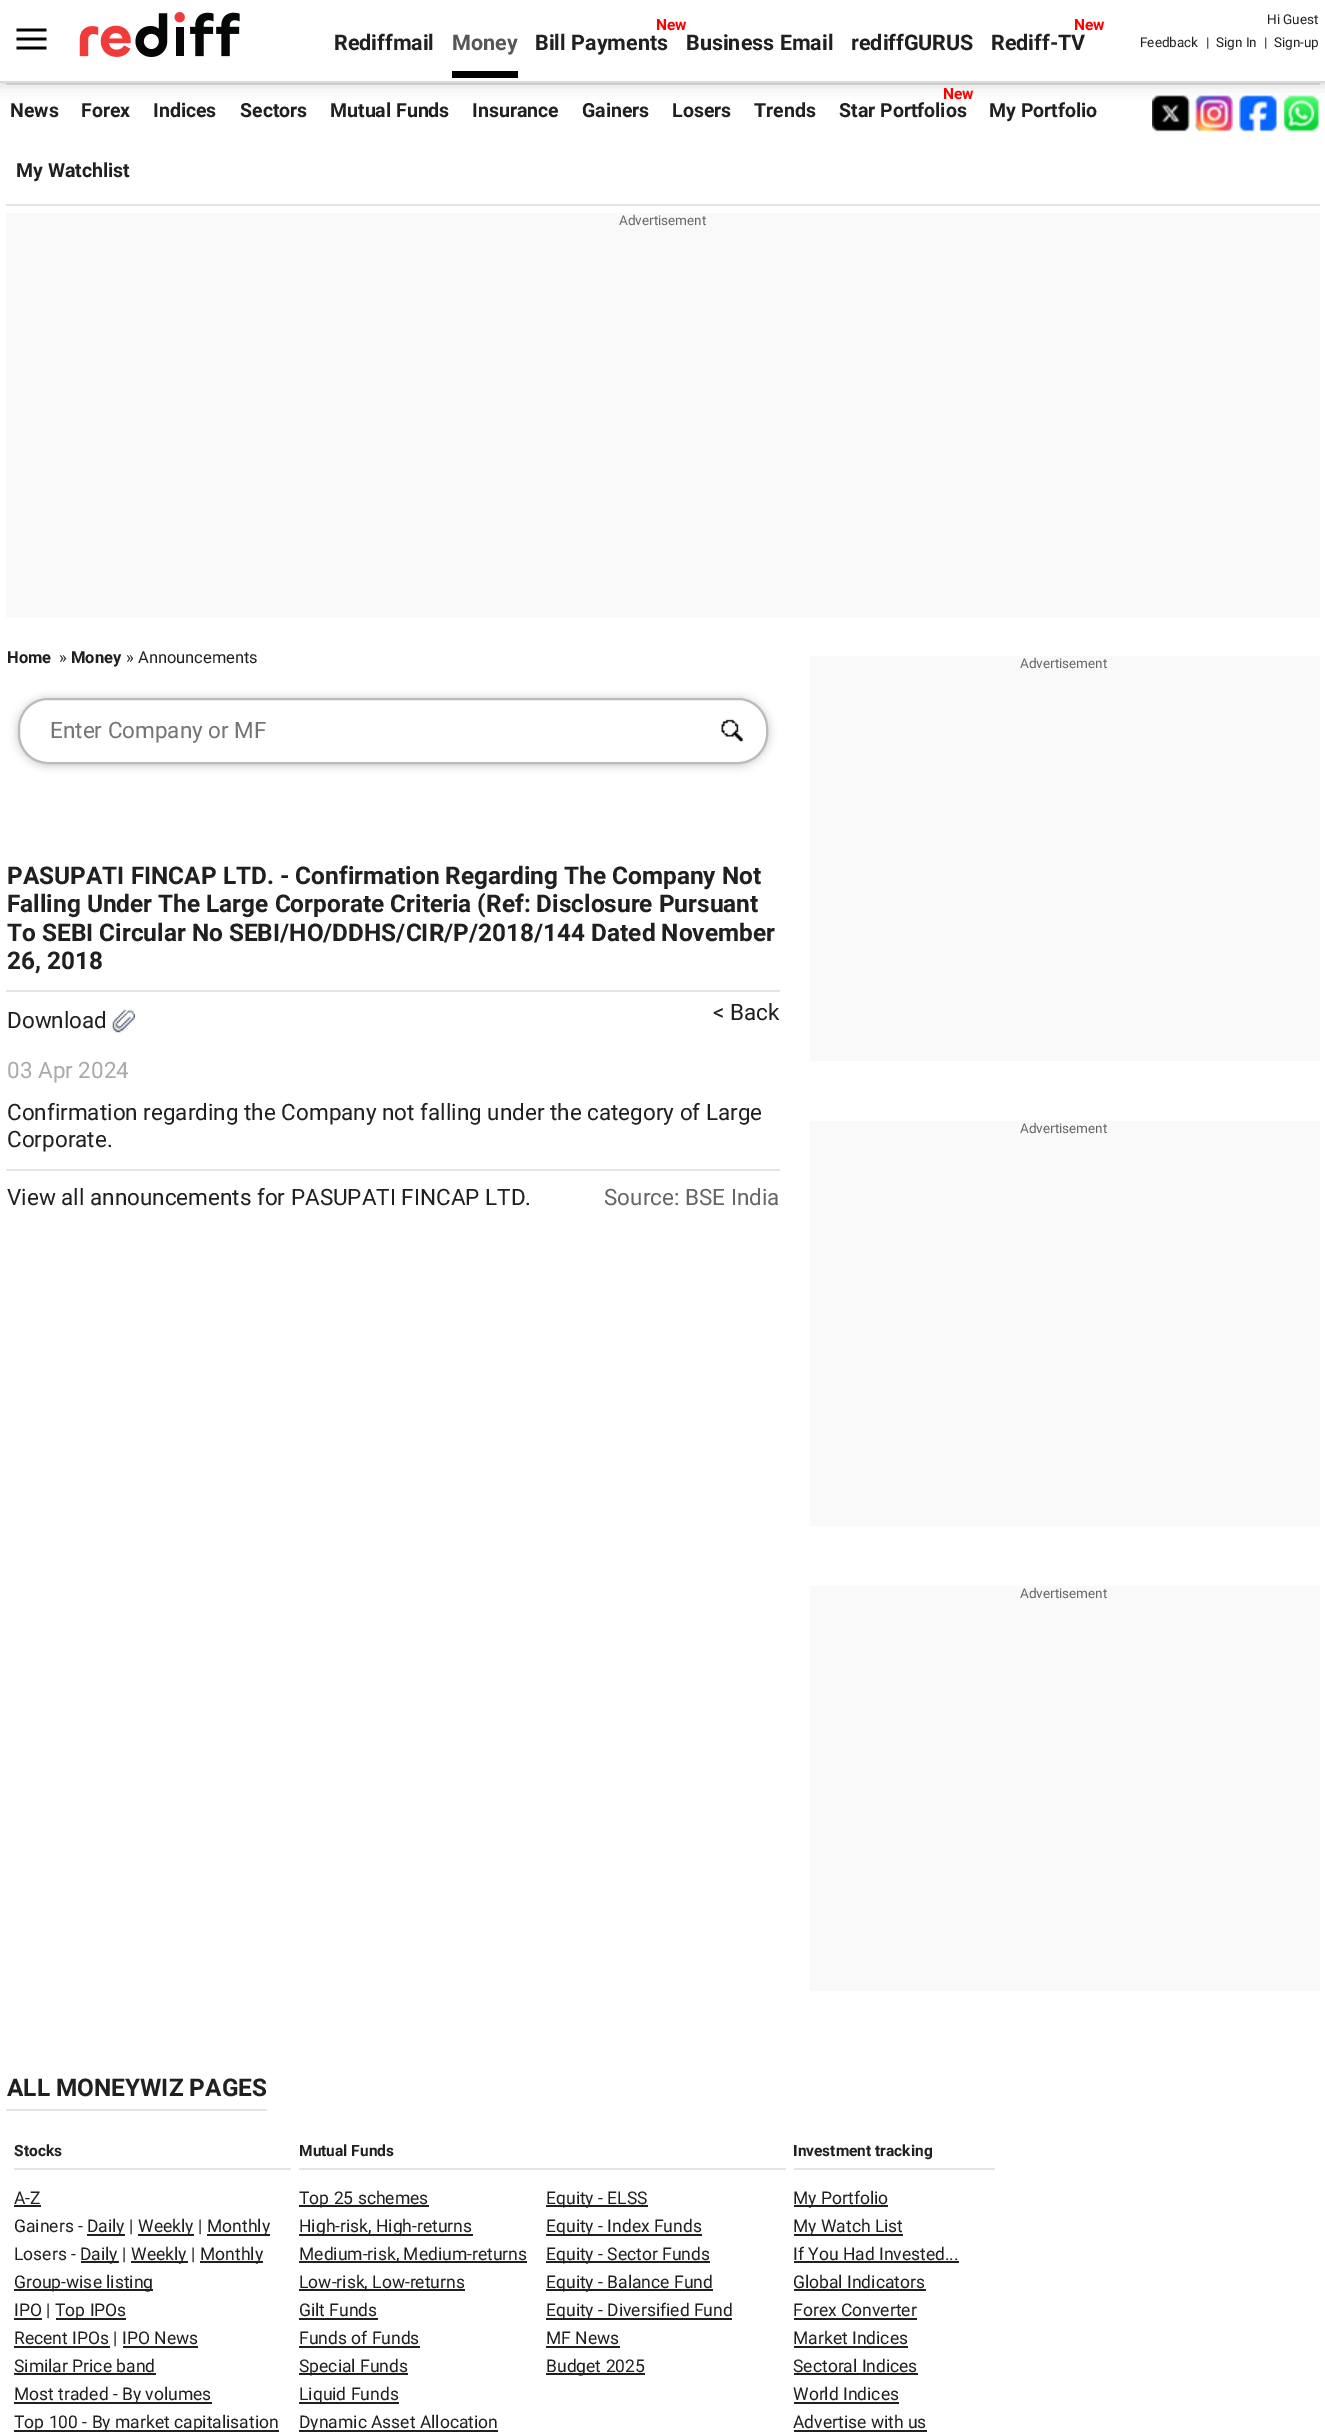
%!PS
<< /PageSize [1325 2432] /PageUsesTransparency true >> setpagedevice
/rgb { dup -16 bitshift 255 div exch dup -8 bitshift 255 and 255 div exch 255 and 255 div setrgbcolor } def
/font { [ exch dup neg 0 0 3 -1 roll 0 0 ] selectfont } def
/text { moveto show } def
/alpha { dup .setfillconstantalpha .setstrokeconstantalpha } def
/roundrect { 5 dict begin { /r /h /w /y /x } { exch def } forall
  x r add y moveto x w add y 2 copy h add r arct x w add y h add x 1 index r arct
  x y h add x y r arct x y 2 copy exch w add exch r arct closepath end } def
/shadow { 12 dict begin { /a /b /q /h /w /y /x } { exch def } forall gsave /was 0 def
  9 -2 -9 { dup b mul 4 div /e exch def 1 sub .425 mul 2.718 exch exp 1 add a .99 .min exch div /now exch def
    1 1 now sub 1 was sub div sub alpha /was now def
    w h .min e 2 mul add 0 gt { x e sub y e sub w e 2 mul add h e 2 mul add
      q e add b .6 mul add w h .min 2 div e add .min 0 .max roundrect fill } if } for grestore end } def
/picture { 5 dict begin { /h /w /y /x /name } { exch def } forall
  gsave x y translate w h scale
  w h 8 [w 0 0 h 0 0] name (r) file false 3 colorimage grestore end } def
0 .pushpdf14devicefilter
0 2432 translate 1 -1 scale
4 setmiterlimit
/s1 { /Roboto-Bold 21.5 font 16#202020 rgb } def
/s2 { /Roboto-Bold 21.5 font 16#575757 rgb } def
/s3 { /Roboto-Bold 15.5 font 16#FF0000 rgb } def
/s4 { /Roboto-Regular 13.5 font 16#202020 rgb } def
/s5 { /Roboto-Bold 19.5 font 16#202020 rgb } def
/s6 { /Roboto-Regular 13.5 font 16#666666 rgb } def
/s7 { /Roboto-Bold 16.5 font 16#202020 rgb } def
/s8 { /Roboto-Regular 16.5 font 16#202020 rgb } def
/s9 { /Roboto-Regular 22.5 font 16#757575 rgb } def
/s10 { /Roboto-Bold 24.4 font 16#202020 rgb } def
/s11 { /Roboto-Regular 22.5 font 16#202020 rgb } def
/s12 { /Roboto-Regular 22.5 font 16#AAAAAA rgb } def
/s13 { /Roboto-Regular 22.5 font 16#666666 rgb } def
/s14 { /Roboto-Bold 15.5 font 16#202020 rgb } def
/s15 { /Roboto-Regular 17.5 font 16#202020 rgb } def
16#FFFFFF rgb
0 0 1325 2432 rectfill
16#E4E4E4 rgb
6 83 1314 2 rectfill
(pic3.raw) 1152 95 38 37 picture
(pic4.raw) 1195 95 38 37 picture
(pic5.raw) 1239 95 38 37 picture
(pic6.raw) 1283 95 36 37 picture
16#000000 rgb
0 0 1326 83 0 7.5 0.2 shadow
16#FFFFFF rgb
0 0 1325 81 rectfill
16#DBDBDB rgb
0 81 1325 2 rectfill
(pic1.raw) 16 28 31 22 picture
(pic2.raw) 79 12 161 45 picture
s1
(Rediffmail) 334 50 text
s2
(Money) 452 50 text
16#000000 rgb
452 71 66 7 rectfill
s3
(New) 656 30 text
s1
(Bill Payments) 535 50 text
(Business Email) 686 50 text
(rediffGURUS) 851 50 text
s3
(New) 1074 30 text
s1
(Rediff-TV) 991 50 text
s4
(Hi Guest) 1267 24 text
(Feedback) 1140 47 text
(|) 1206 47 text
(Sign In) 1216 47 text
(|) 1264 47 text
(Sign-up) 1274 47 text
16#E4E4E4 rgb
6 204 1314 2 rectfill
s5
(News) 10 117 text
(Forex) 81 117 text
(Indices) 153 117 text
(Sectors) 240 117 text
(Mutual Funds) 330 117 text
(Insurance) 472 117 text
(Gainers) 582 117 text
(Losers) 672 117 text
(Trends) 754 117 text
s3
(New) 943 99 text
s5
(Star Portfolios) 839 117 text
(My Portfolio) 989 117 text
(My Watchlist) 16 177 text
16#F9F9F9 rgb
6 213 1314 405 rectfill
s6
(Advertisement) 619 225 text
s7
(Home) 7 663 text
s8
(») 59 663 text
s7
(Money) 71 663 text
s8
(» Announcements) 126 663 text
gsave
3 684 moveto 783 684 lineto 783 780 lineto 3 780 lineto closepath 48 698 moveto 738 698 lineto 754.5 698 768 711.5 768 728 curveto 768 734 lineto 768 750.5 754.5 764 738 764 curveto 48 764 lineto 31.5 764 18 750.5 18 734 curveto 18 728 lineto 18 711.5 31.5 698 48 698 curveto closepath eoclip newpath
16#202124 rgb
18 699 750 66 30 4.5 0.28 shadow
grestore
16#BBBBBB rgb
2 setlinewidth
19 699 748 64 29 roundrect stroke
s9
(Enter Company or MF) 50 738 text
(pic7.raw) 721 719 22 23 picture
s10
(PASUPATI FINCAP LTD. - Confirmation Regarding The Company Not) 7 884 text
(Falling Under The Large Corporate Criteria \(Ref: Disclosure Pursuant) 7 912 text
(To SEBI Circular No SEBI/HO/DDHS/CIR/P/2018/144 Dated November) 7 941 text
(26, 2018) 7 969 text
16#E5E5E5 rgb
6 990 774 2 rectfill
s11
(Download) 7 1028 text
(pic8.raw) 112 1009 23 24 picture
(< Back) 713 1020 text
s12
(03 Apr 2024) 7 1078 text
s11
(Confirmation regarding the Company not falling under the category of Large) 7 1120 text
(Corporate.) 7 1147 text
16#E5E5E5 rgb
6 1169 774 2 rectfill
s11
(View all announcements for PASUPATI FINCAP LTD.) 7 1205 text
s13
(Source: BSE India) 604 1205 text
16#F9F9F9 rgb
810 656 510 405 rectfill
s6
(Advertisement) 1020 668 text
16#F9F9F9 rgb
810 1121 510 405 rectfill
s6
(Advertisement) 1020 1133 text
16#F9F9F9 rgb
810 1586 510 405 rectfill
s6
(Advertisement) 1020 1598 text
16#E4E4E4 rgb
6 2109 261 2 rectfill
s10
(ALL MONEYWIZ PAGES) 7 2096 text
16#E4E4E4 rgb
14 2168 277 2 rectfill
s14
(Stocks) 14 2156 text
16#E4E4E4 rgb
299 2168 487 2 rectfill
s14
(Mutual Funds) 299 2156 text
16#E4E4E4 rgb
794 2168 201 2 rectfill
s14
(Investment tracking) 793 2156 text
s15
(A-Z) 14 2204 text
14 2205 27 2 rectfill
(Gainers -) 14 2232 text
87 2234 38 2 rectfill
(Daily |) 87 2232 text
138 2234 56 2 rectfill
(Weekly |) 138 2232 text
207 2234 63 2 rectfill
(Monthly) 207 2232 text
(Losers -) 14 2260 text
81 2261 38 2 rectfill
(Daily |) 80 2260 text
131 2261 57 2 rectfill
(Weekly |) 131 2260 text
200 2261 63 2 rectfill
(Monthly) 200 2260 text
14 2289 139 2 rectfill
(Group-wise listing) 14 2288 text
14 2318 28 2 rectfill
(IPO |) 14 2316 text
56 2318 70 2 rectfill
(Top IPOs) 55 2316 text
14 2346 96 2 rectfill
(Recent IPOs | IPO News) 14 2344 text
123 2346 75 2 rectfill
(Similar Price band) 14 2372 text
14 2373 142 2 rectfill
14 2402 198 2 rectfill
(Most traded - By volumes) 14 2400 text
14 2430 265 2 rectfill
(Top 100 - By market capitalisation) 14 2428 text
299 2205 130 2 rectfill
(Top 25 schemes) 299 2204 text
299 2234 174 2 rectfill
(High-risk, High-returns) 299 2232 text
299 2261 228 2 rectfill
(Medium-risk, Medium-returns) 299 2260 text
299 2289 166 2 rectfill
(Low-risk, Low-returns) 299 2288 text
(Gilt Funds) 299 2316 text
299 2318 79 2 rectfill
(Funds of Funds) 299 2344 text
299 2346 121 2 rectfill
299 2373 109 2 rectfill
(Special Funds) 299 2372 text
299 2402 100 2 rectfill
(Liquid Funds) 299 2400 text
299 2430 199 2 rectfill
(Dynamic Asset Allocation) 299 2428 text
546 2205 102 2 rectfill
(Equity - ELSS) 546 2204 text
546 2234 156 2 rectfill
(Equity - Index Funds) 546 2232 text
546 2261 164 2 rectfill
(Equity - Sector Funds) 546 2260 text
546 2289 167 2 rectfill
(Equity - Balance Fund) 546 2288 text
546 2318 186 2 rectfill
(Equity - Diversified Fund) 546 2316 text
(MF News) 546 2344 text
546 2346 74 2 rectfill
546 2373 99 2 rectfill
(Budget 2025) 546 2372 text
794 2205 94 2 rectfill
(My Portfolio) 793 2204 text
794 2234 109 2 rectfill
(My Watch List) 793 2232 text
(If You Had Invested...) 793 2260 text
794 2261 165 2 rectfill
(Global Indicators) 793 2288 text
794 2289 132 2 rectfill
(Forex Converter) 793 2316 text
794 2318 123 2 rectfill
(Market Indices) 793 2344 text
794 2346 114 2 rectfill
(Sectoral Indices) 793 2372 text
794 2373 124 2 rectfill
(World Indices) 793 2400 text
794 2402 105 2 rectfill
(Advertise with us) 793 2428 text
794 2430 133 2 rectfill
.poppdf14devicefilter showpage
